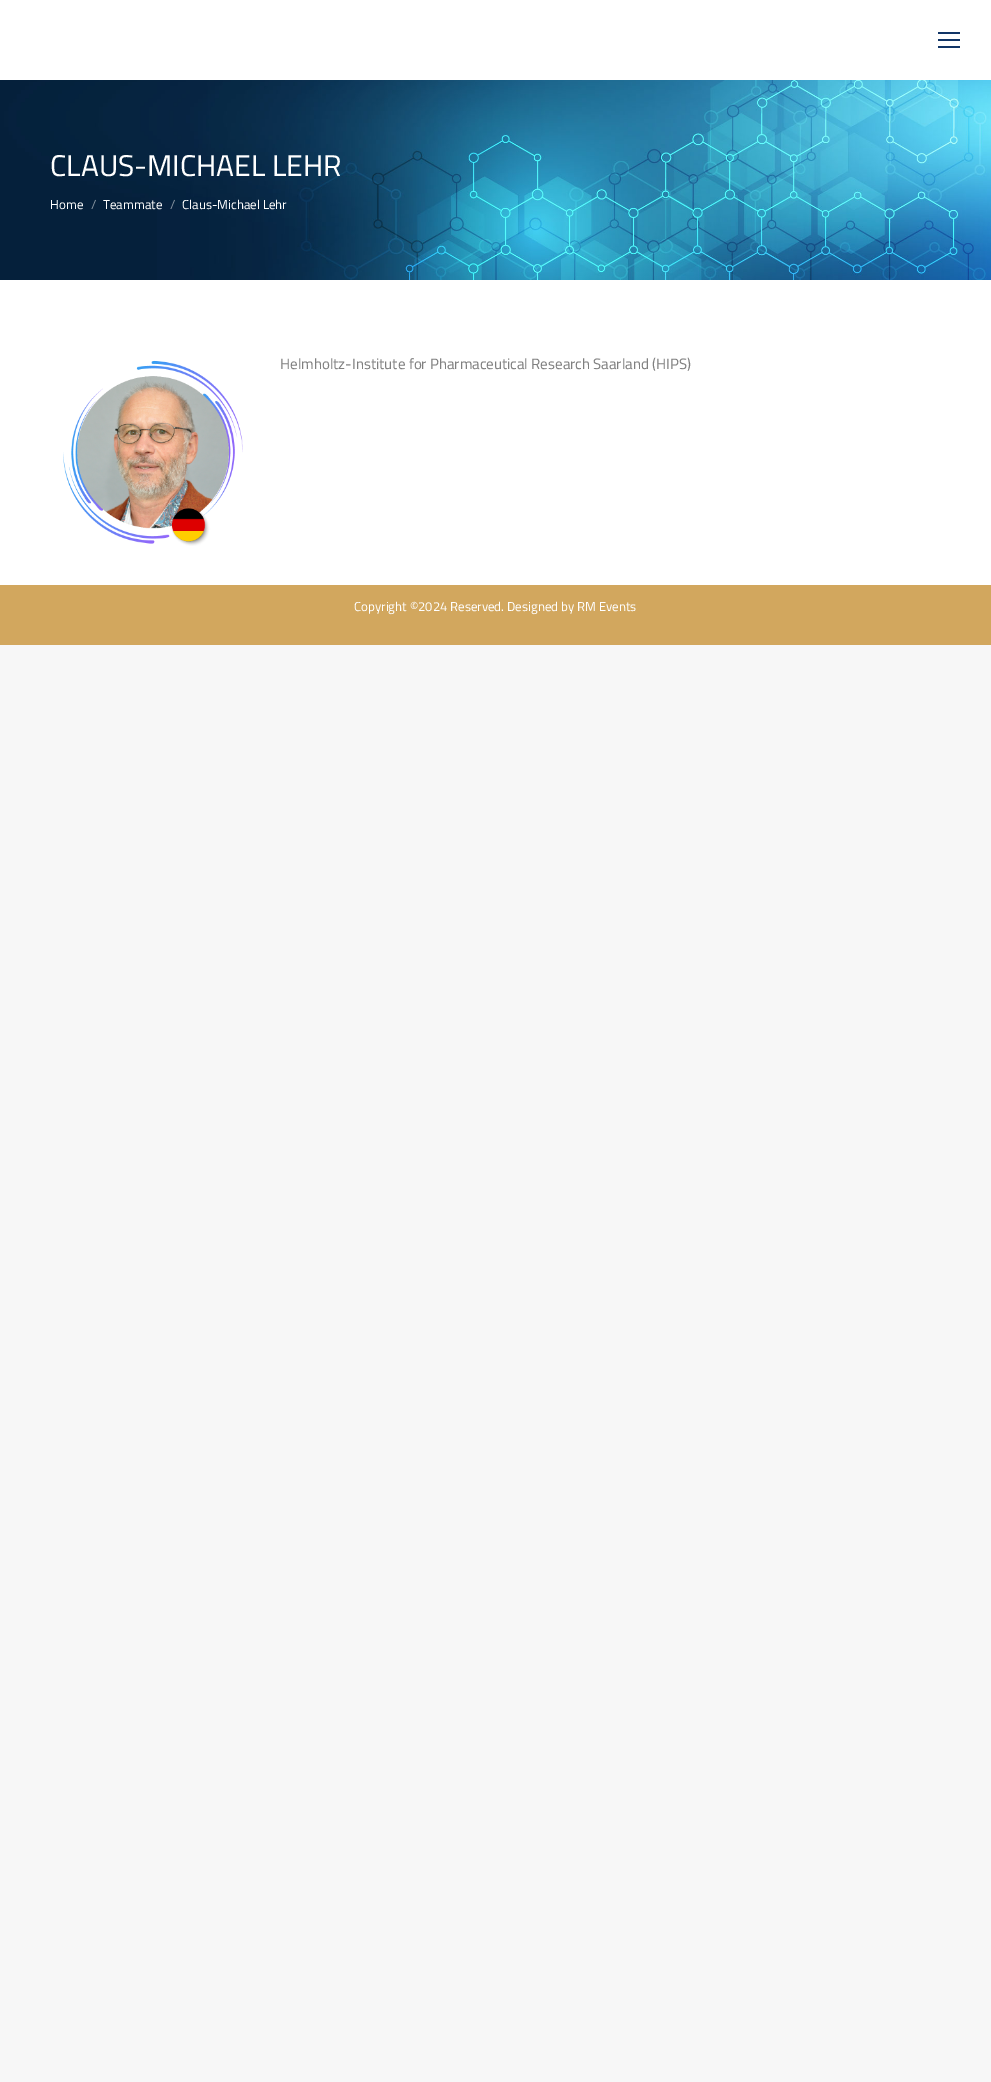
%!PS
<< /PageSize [991 2082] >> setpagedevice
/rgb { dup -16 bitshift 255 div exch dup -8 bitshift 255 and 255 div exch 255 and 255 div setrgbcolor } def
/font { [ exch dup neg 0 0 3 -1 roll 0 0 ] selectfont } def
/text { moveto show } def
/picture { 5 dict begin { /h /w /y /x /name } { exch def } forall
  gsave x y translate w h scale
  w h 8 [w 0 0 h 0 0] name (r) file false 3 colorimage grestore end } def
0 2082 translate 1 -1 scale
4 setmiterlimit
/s1 { /Cairo-Regular 30 font 16#FFFFFF rgb } def
/s2 { /Cairo-Regular 13 font 16#FFFFFF rgb } def
/s3 { /Cairo-Regular 13 font 16#82909D rgb } def
/s4 { /Cairo-Regular 15 font 16#808080 rgb } def
16#F7F7F7 rgb
0 0 991 2082 rectfill
16#FFFFFF rgb
0 0 991 585 rectfill
16#113567 rgb
938 32 22 2 rectfill
938 39 22 2 rectfill
938 46 22 2 rectfill
(pic1.raw) 0 80 991 200 picture
s1
(CLAUS-MICHAEL LEHR) 50 176 text
s2
(Home) 50 209 text
s3
(/) 91 209 text
s2
(Teammate) 103 209 text
s3
(/) 170 209 text
s2
(Claus-Michael Lehr) 182 209 text
(pic2.raw) 63 360 180 186 picture
s4
(Helmholtz-Institute for Pharmaceutical Research Saarland \(HIPS\)) 280 369 text
16#D2A75E rgb
0 585 991 60 rectfill
s2
(Copyright ©2024 Reserved. Designed by RM Events) 354 611 text
showpage
